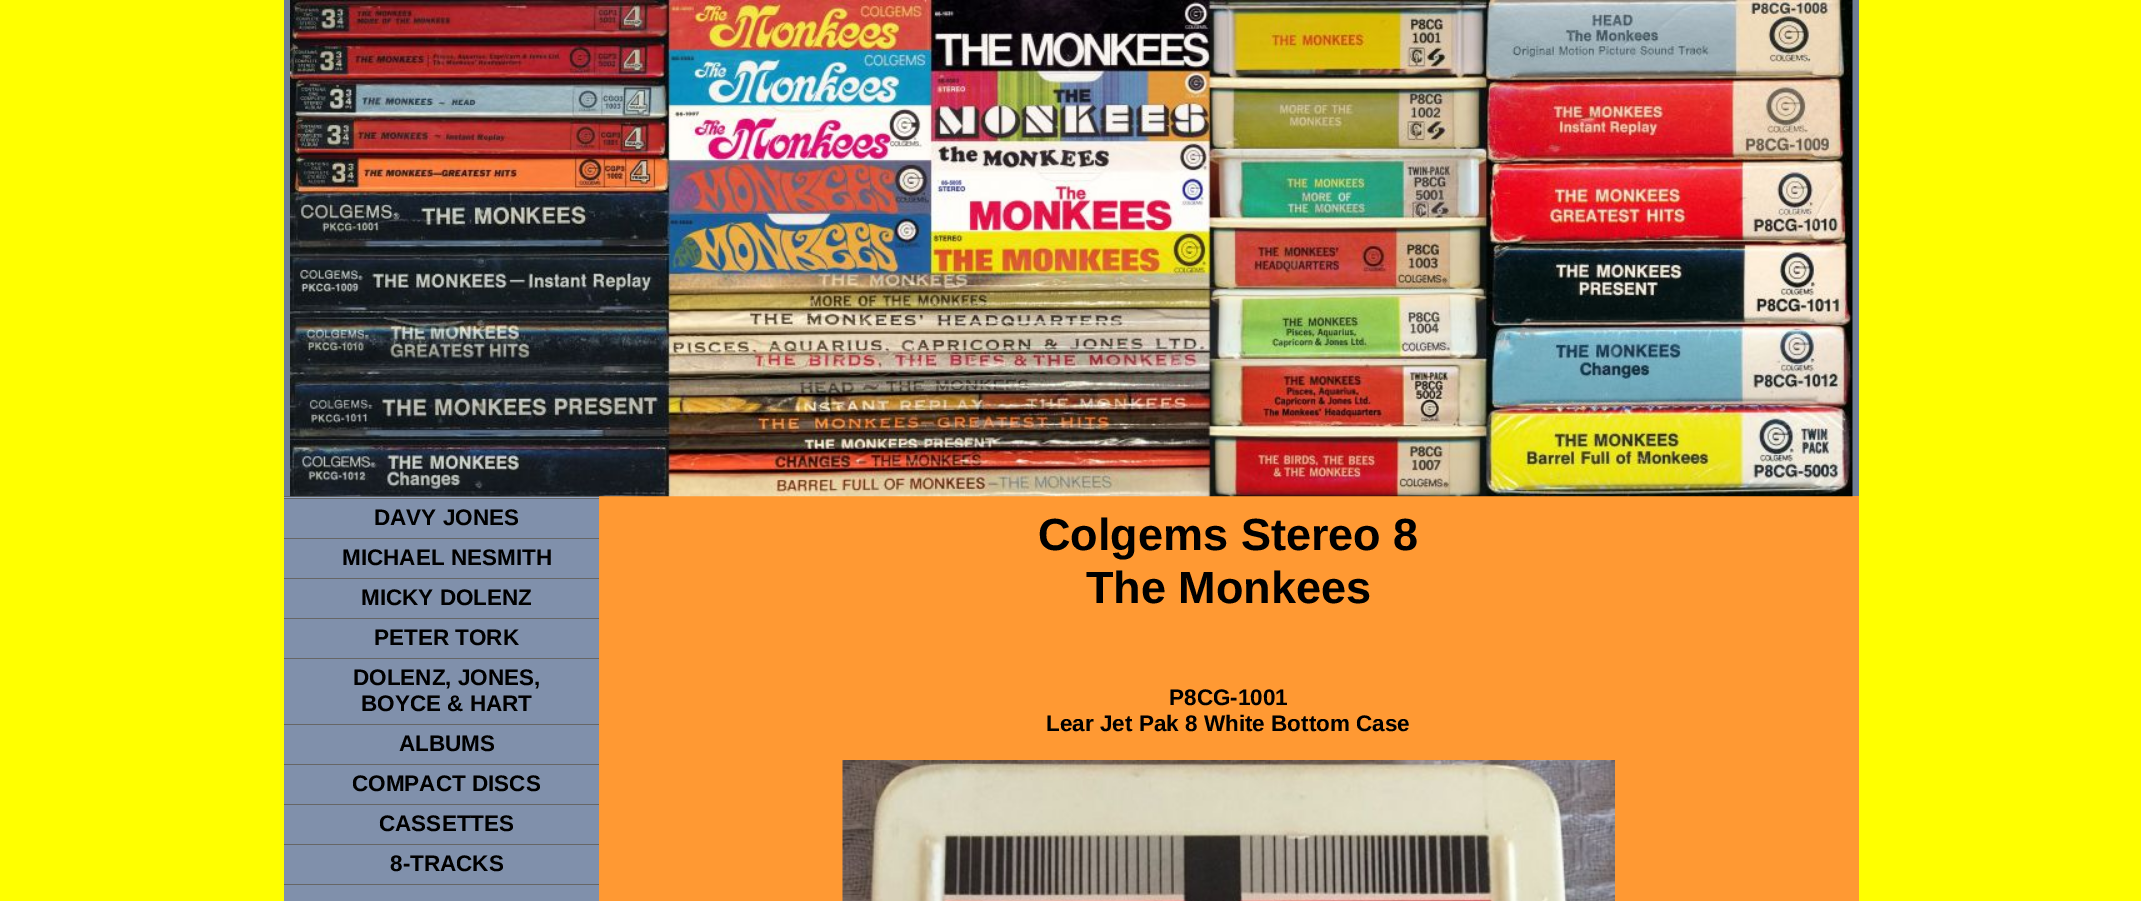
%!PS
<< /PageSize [2141 901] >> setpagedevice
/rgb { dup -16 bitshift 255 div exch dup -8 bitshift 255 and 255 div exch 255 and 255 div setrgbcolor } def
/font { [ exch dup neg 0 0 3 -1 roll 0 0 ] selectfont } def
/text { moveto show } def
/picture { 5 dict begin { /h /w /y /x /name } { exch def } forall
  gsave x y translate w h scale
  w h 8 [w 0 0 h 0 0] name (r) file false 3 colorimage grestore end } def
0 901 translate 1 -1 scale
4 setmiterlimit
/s1 { /LiberationSans-Bold 22.5 font 16#000000 rgb } def
/s2 { /LiberationSans-Bold 45 font 16#000000 rgb } def
16#FFFF00 rgb
0 0 2141 901 rectfill
16#FF9933 rgb
599 496 1260 405 rectfill
16#6F7D94 rgb
284 0 1575 496 rectfill
16#666666 rgb
284 496 315 1 rectfill
(pic1.raw) 290 0 1563 497 picture
16#93A5C4 rgb
284 497 315 1 rectfill
16#666666 rgb
284 498 315 1 rectfill
284 538 315 1 rectfill
16#8090AB rgb
284 499 315 39 rectfill
s1
(DAVY JONES) 374 525 text
16#666666 rgb
284 578 315 1 rectfill
16#8090AB rgb
284 539 315 39 rectfill
s1
(MICHAEL NESMITH) 342 565 text
16#666666 rgb
284 618 315 1 rectfill
16#8090AB rgb
284 579 315 39 rectfill
s1
(MICKY DOLENZ) 361 605 text
16#666666 rgb
284 658 315 1 rectfill
16#8090AB rgb
284 619 315 39 rectfill
s1
(PETER TORK) 374 645 text
16#666666 rgb
284 724 315 1 rectfill
16#8090AB rgb
284 659 315 65 rectfill
s1
(DOLENZ, JONES,) 353 685 text
(BOYCE & HART) 361 711 text
16#666666 rgb
284 764 315 1 rectfill
16#8090AB rgb
284 725 315 39 rectfill
s1
(ALBUMS) 399 751 text
16#666666 rgb
284 804 315 1 rectfill
16#8090AB rgb
284 765 315 39 rectfill
s1
(COMPACT DISCS) 352 791 text
16#666666 rgb
284 844 315 1 rectfill
16#8090AB rgb
284 805 315 39 rectfill
s1
(CASSETTES) 379 831 text
16#666666 rgb
284 884 315 1 rectfill
16#8090AB rgb
284 845 315 39 rectfill
s1
(8-TRACKS) 390 871 text
16#8090AB rgb
284 885 315 16 rectfill
s2
(Colgems Stereo 8) 1038 550 text
(The Monkees) 1086 603 text
s1
(P8CG-1001) 1169 705 text
(Lear Jet Pak 8 White Bottom Case) 1046 731 text
(pic2.raw) 842 760 773 141 picture
showpage
